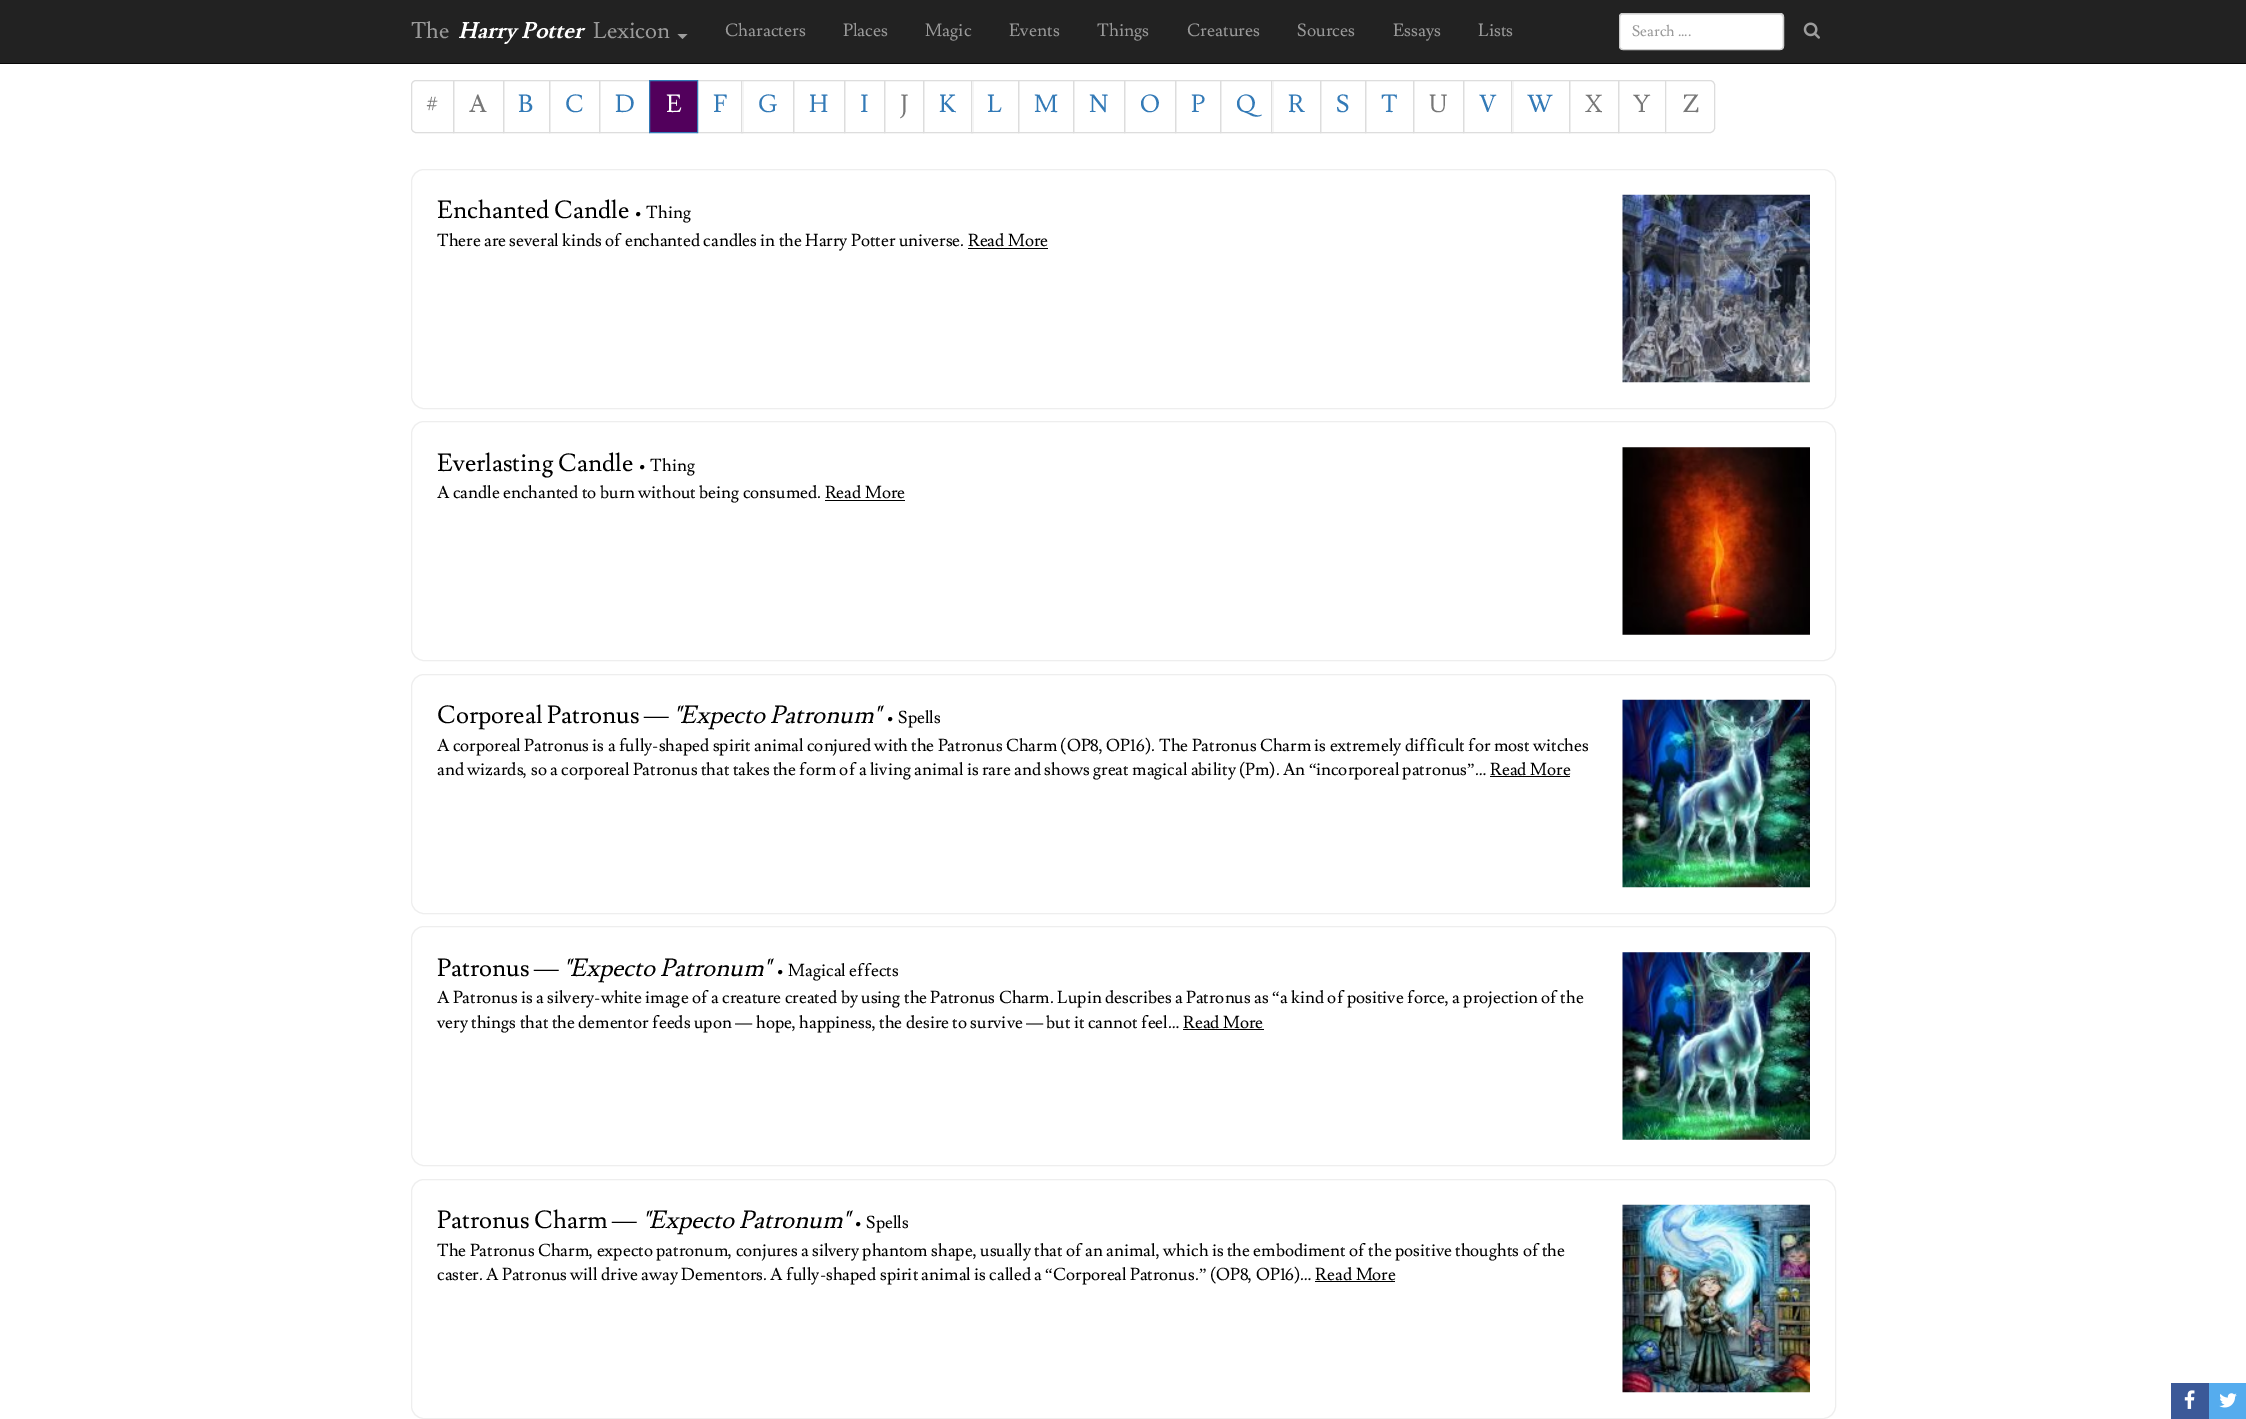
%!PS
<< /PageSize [2246 1419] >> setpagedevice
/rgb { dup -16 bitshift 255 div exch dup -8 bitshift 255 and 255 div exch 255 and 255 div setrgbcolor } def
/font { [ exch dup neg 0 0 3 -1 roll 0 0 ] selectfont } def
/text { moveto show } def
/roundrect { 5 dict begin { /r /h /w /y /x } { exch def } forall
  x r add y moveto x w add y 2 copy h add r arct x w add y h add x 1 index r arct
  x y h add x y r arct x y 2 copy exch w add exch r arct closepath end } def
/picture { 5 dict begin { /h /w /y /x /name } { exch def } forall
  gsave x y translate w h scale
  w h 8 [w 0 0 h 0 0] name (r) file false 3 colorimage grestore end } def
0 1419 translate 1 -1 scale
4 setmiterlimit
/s1 { /Lusitana-Regular 22.5 font 16#999999 rgb } def
/s2 { /Lusitana-BoldItalic 22.5 font 16#FFFFFF rgb } def
/s3 { /Lusitana-Regular 17.5 font 16#999999 rgb } def
/s4 { /Lusitana-Regular 15 font 16#999999 rgb } def
/s5 { /Lusitana-Regular 24.5 font 16#777777 rgb } def
/s6 { /Lusitana-Regular 24.5 font 16#337AB7 rgb } def
/s7 { /Lusitana-Regular 24.5 font 16#FFFFFF rgb } def
/s8 { /Lusitana-Regular 24.5 font 16#000000 rgb } def
/s9 { /Lusitana-Regular 17.15 font 16#000000 rgb } def
/s10 { /LiberationSerif-Regular 24.5 font 16#000000 rgb } def
/s11 { /Lusitana-Italic 24.5 font 16#000000 rgb } def
/s12 { /LiberationSerif-Regular 17.15 font 16#000000 rgb } def
16#FFFFFF rgb
0 0 2246 1419 rectfill
16#222222 rgb
0 0 2246 63 rectfill
16#080808 rgb
0 63 2246 1 rectfill
s1
(The) 411 38 text
s2
(Harry Potter) 458 38 text
s1
(Lexicon) 593 38 text
16#9D9D9D rgb
677.5 34 moveto 687.5 34 lineto 682.5 39 lineto closepath fill
s3
(Characters) 725 36 text
(Places) 843 36 text
(Magic) 925 36 text
(Events) 1009 36 text
(Things) 1097 36 text
(Creatures) 1187 36 text
(Sources) 1297 36 text
(Essays) 1393 36 text
(Lists) 1478 36 text
16#FFFFFF rgb
1619 13 165 37 4 roundrect fill
16#ECECEC rgb
1622 15 moveto 1780 15 lineto 1784 15 1782 27 1782 28 curveto 1782 49 lineto 1784 47 1783 39 1783 36 curveto 1783 7 1789 14 1754 14 curveto 1622 14 lineto 1620 14 1620 16 1620 18 curveto 1620 16 1621 15 1622 15 curveto closepath fill
16#CCCCCC rgb
1619.5 13.5 164 36 3.5 roundrect stroke
s4
(Search ....) 1632 36 text
(pic1.raw) 1803 22 17 17 picture
16#DDDDDD rgb
416 80.5 moveto 453.5 80.5 lineto 453.5 132.5 lineto 416 132.5 lineto 413.5 132.5 411.5 130.5 411.5 128 curveto 411.5 85 lineto 411.5 82.5 413.5 80.5 416 80.5 curveto closepath stroke
s5
(#) 427 112 text
16#DDDDDD rgb
453.5 80.5 50 52 rectstroke
s5
(A) 469 112 text
16#DDDDDD rgb
503.5 80.5 46 52 rectstroke
s6
(B) 518 112 text
16#DDDDDD rgb
549.5 80.5 50 52 rectstroke
s6
(C) 565 112 text
16#DDDDDD rgb
599.5 80.5 50 52 rectstroke
s6
(D) 615 112 text
16#DDDDDD rgb
696.5 80.5 46 52 rectstroke
16#52005C rgb
649.5 80.5 moveto 697.5 80.5 lineto 697.5 132.5 lineto 649.5 132.5 lineto closepath gsave fill grestore
16#337AB7 rgb
stroke
s7
(E) 666 112 text
s6
(F) 713 112 text
16#FFFFFF rgb
742 81 1 51 rectfill
16#DDDDDD rgb
741.5 80.5 52 52 rectstroke
s6
(G) 758 112 text
16#DDDDDD rgb
793.5 80.5 51 52 rectstroke
s6
(H) 809 112 text
16#DDDDDD rgb
844.5 80.5 40 52 rectstroke
s6
(I) 860 112 text
16#DDDDDD rgb
884.5 80.5 39 52 rectstroke
s5
(J) 900 112 text
16#DDDDDD rgb
923.5 80.5 49 52 rectstroke
s6
(K) 939 112 text
16#FFFFFF rgb
972 81 1 51 rectfill
16#DDDDDD rgb
971.5 80.5 47 52 rectstroke
s6
(L) 987 112 text
16#DDDDDD rgb
1018.5 80.5 55 52 rectstroke
s6
(M) 1034 112 text
16#DDDDDD rgb
1073.5 80.5 51 52 rectstroke
s6
(N) 1089 112 text
16#DDDDDD rgb
1124.5 80.5 51 52 rectstroke
s6
(O) 1140 112 text
16#DDDDDD rgb
1175.5 80.5 45 52 rectstroke
s6
(P) 1191 112 text
16#DDDDDD rgb
1220.5 80.5 52 52 rectstroke
s6
(Q) 1236 112 text
16#FFFFFF rgb
1272 81 1 51 rectfill
16#DDDDDD rgb
1271.5 80.5 49 52 rectstroke
s6
(R) 1288 112 text
16#DDDDDD rgb
1320.5 80.5 45 52 rectstroke
s6
(S) 1336 112 text
16#DDDDDD rgb
1365.5 80.5 48 52 rectstroke
s6
(T) 1381 112 text
16#DDDDDD rgb
1413.5 80.5 50 52 rectstroke
s5
(U) 1429 112 text
16#DDDDDD rgb
1463.5 80.5 49 52 rectstroke
s6
(V) 1479 112 text
16#FFFFFF rgb
1512 81 1 51 rectfill
16#DDDDDD rgb
1511.5 80.5 58 52 rectstroke
s6
(W) 1527 112 text
16#DDDDDD rgb
1569.5 80.5 49 52 rectstroke
s5
(X) 1585 112 text
16#DDDDDD rgb
1618.5 80.5 47 52 rectstroke
s5
(Y) 1633 112 text
16#FFFFFF rgb
1665.5 80.5 moveto 1710 80.5 lineto 1712.5 80.5 1714.5 82.5 1714.5 85 curveto 1714.5 128 lineto 1714.5 130.5 1712.5 132.5 1710 132.5 curveto 1665.5 132.5 lineto closepath gsave fill grestore
16#DDDDDD rgb
stroke
s5
(Z) 1682 112 text
16#EEEEEE rgb
411.5 169.5 1424 239 12.5 roundrect stroke
s8
(Enchanted Candle) 437 218 text
s9
(• Thing) 634 218 text
(pic2.raw) 1622 194 188 189 picture
(There are several kinds of enchanted candles in the Harry Potter universe. Read More) 437 246 text
968 248 80 1 rectfill
16#EEEEEE rgb
411.5 421.5 1424 239 12.5 roundrect stroke
s8
(Everlasting Candle) 437 471 text
s9
(• Thing) 638 471 text
(pic3.raw) 1622 447 188 188 picture
(A candle enchanted to burn without being consumed. Read More) 437 498 text
825 500 80 1 rectfill
16#EEEEEE rgb
411.5 674.5 1424 239 12.5 roundrect stroke
s8
(Corporeal Patronus) 437 723 text
s10
(—) 644 723 text
s11
("Expecto Patronum") 673 723 text
s9
(• Spells) 886 723 text
(pic4.raw) 1622 699 188 189 picture
(A corporeal Patronus is a fully-shaped spirit animal conjured with the Patronus Charm \(OP8, OP16\).) 437 751 text
(The Patronus Charm is extremely difficult for most witches) 1159 751 text
(and wizards, so a corporeal Patronus that takes the form of a living animal is rare and shows great magical ability \(Pm\). An) 437 775 text
s12
(“) 1309 775 text
s9
(incorporeal patronus) 1316 775 text
s12
(”) 1467 775 text
s9
(… Read More) 1475 775 text
1490 776 80 1 rectfill
16#EEEEEE rgb
411.5 926.5 1424 239 12.5 roundrect stroke
s8
(Patronus) 437 976 text
s10
(—) 534 976 text
s11
("Expecto Patronum") 563 976 text
s9
(• Magical effects) 776 976 text
(pic5.raw) 1622 952 188 188 picture
(A Patronus is a silvery-white image of a creature created by using the Patronus Charm. Lupin describes a Patronus as) 437 1003 text
s12
(“) 1272 1003 text
s9
(a kind of positive force, a projection of the) 1280 1003 text
(very things that the dementor feeds upon) 437 1028 text
s12
(—) 735 1028 text
s9
(hope, happiness, the desire to survive) 756 1028 text
s12
(—) 1026 1028 text
s9
(but it cannot feel… Read More) 1046 1028 text
1183 1029 81 1 rectfill
16#EEEEEE rgb
411.5 1179.5 1424 239 12.5 roundrect stroke
s8
(Patronus Charm) 437 1228 text
s10
(—) 612 1228 text
s11
("Expecto Patronum") 642 1228 text
s9
(• Spells) 854 1228 text
(pic6.raw) 1622 1204 188 189 picture
(The Patronus Charm, expecto patronum, conjures a silvery phantom shape, usually that of an animal, which is the embodiment of the positive thoughts of the) 437 1256 text
(caster. A Patronus will drive away Dementors. A fully-shaped spirit animal is called a) 437 1280 text
s12
(“) 1045 1280 text
s9
(Corporeal Patronus.) 1053 1280 text
s12
(”) 1199 1280 text
s9
(\(OP8, OP16\)… Read More) 1210 1280 text
1315 1281 80 1 rectfill
16#3B5998 rgb
2171 1383 38 36 rectfill
(pic7.raw) 2184 1390 11 19 picture
16#55ACEE rgb
2209 1383 37 36 rectfill
(pic8.raw) 2219 1393 18 15 picture
showpage
